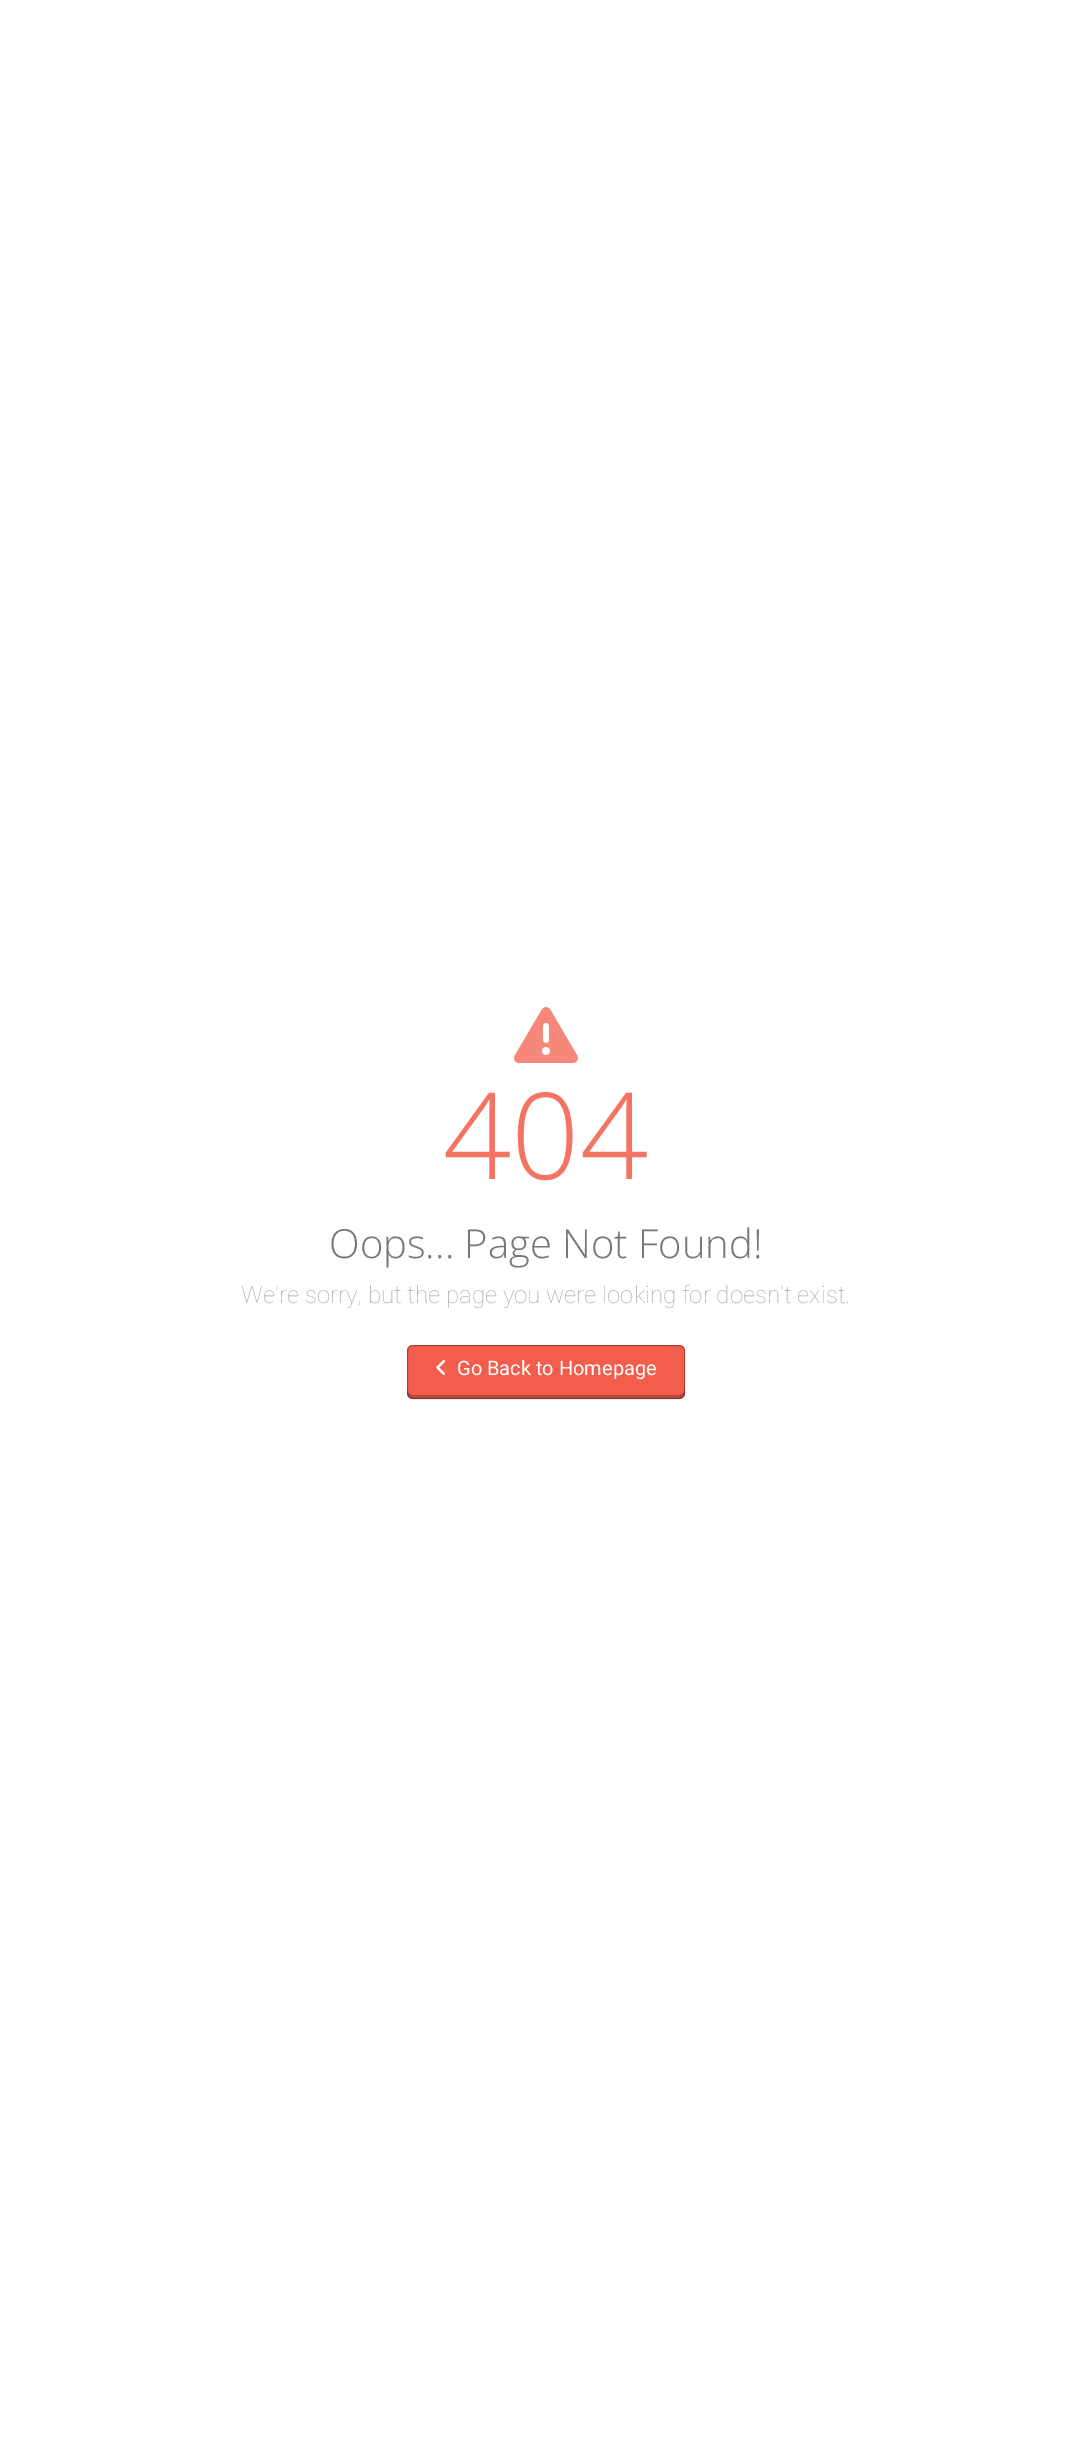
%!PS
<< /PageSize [1092 2449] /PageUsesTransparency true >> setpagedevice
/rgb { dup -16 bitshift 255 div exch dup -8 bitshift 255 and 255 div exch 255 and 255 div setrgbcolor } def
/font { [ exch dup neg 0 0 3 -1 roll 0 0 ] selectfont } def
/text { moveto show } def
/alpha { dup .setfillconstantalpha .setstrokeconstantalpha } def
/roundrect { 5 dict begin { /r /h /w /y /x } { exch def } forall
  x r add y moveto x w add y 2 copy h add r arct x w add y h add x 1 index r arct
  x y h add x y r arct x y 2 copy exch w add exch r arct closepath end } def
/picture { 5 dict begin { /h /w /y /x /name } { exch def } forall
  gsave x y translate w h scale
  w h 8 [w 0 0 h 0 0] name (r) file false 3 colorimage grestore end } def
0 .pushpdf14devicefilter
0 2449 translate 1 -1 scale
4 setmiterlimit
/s1 { /OpenSans-Light 120 font 16#F47363 rgb } def
/s2 { /OpenSans-Light 40 font 16#777777 rgb } def
/s3 { /Roboto-Thin 24 font 16#AAAAAA rgb } def
/s4 { /Roboto-Regular 20 font 16#FFFFFF rgb } def
16#FFFFFF rgb
0 0 1092 2449 rectfill
(pic1.raw) 514 1007 64 56 picture
s1
(404) 443 1179 text
s2
(Oops... Page Not Found!) 329 1258 text
s3
(We're sorry, but the page you were looking for doesn't exist.) 241 1303 text
16#F35D4B rgb
407 1345 278 54 6 roundrect fill
0.3 alpha
16#000000 rgb
407.5 1345.5 277 53 5.5 roundrect stroke
0.25 alpha
407 1389 moveto 407 1393 lineto 407 1396 410 1399 413 1399 curveto 679 1399 lineto 682 1399 685 1396 685 1393 curveto 685 1389 lineto 685 1392 682 1395 679 1395 curveto 413 1395 lineto 410 1395 407 1392 407 1389 curveto closepath fill
1 alpha
(pic2.raw) 436 1360 9 15 picture
s4
(Go Back to Homepage) 457 1375 text
.poppdf14devicefilter showpage
